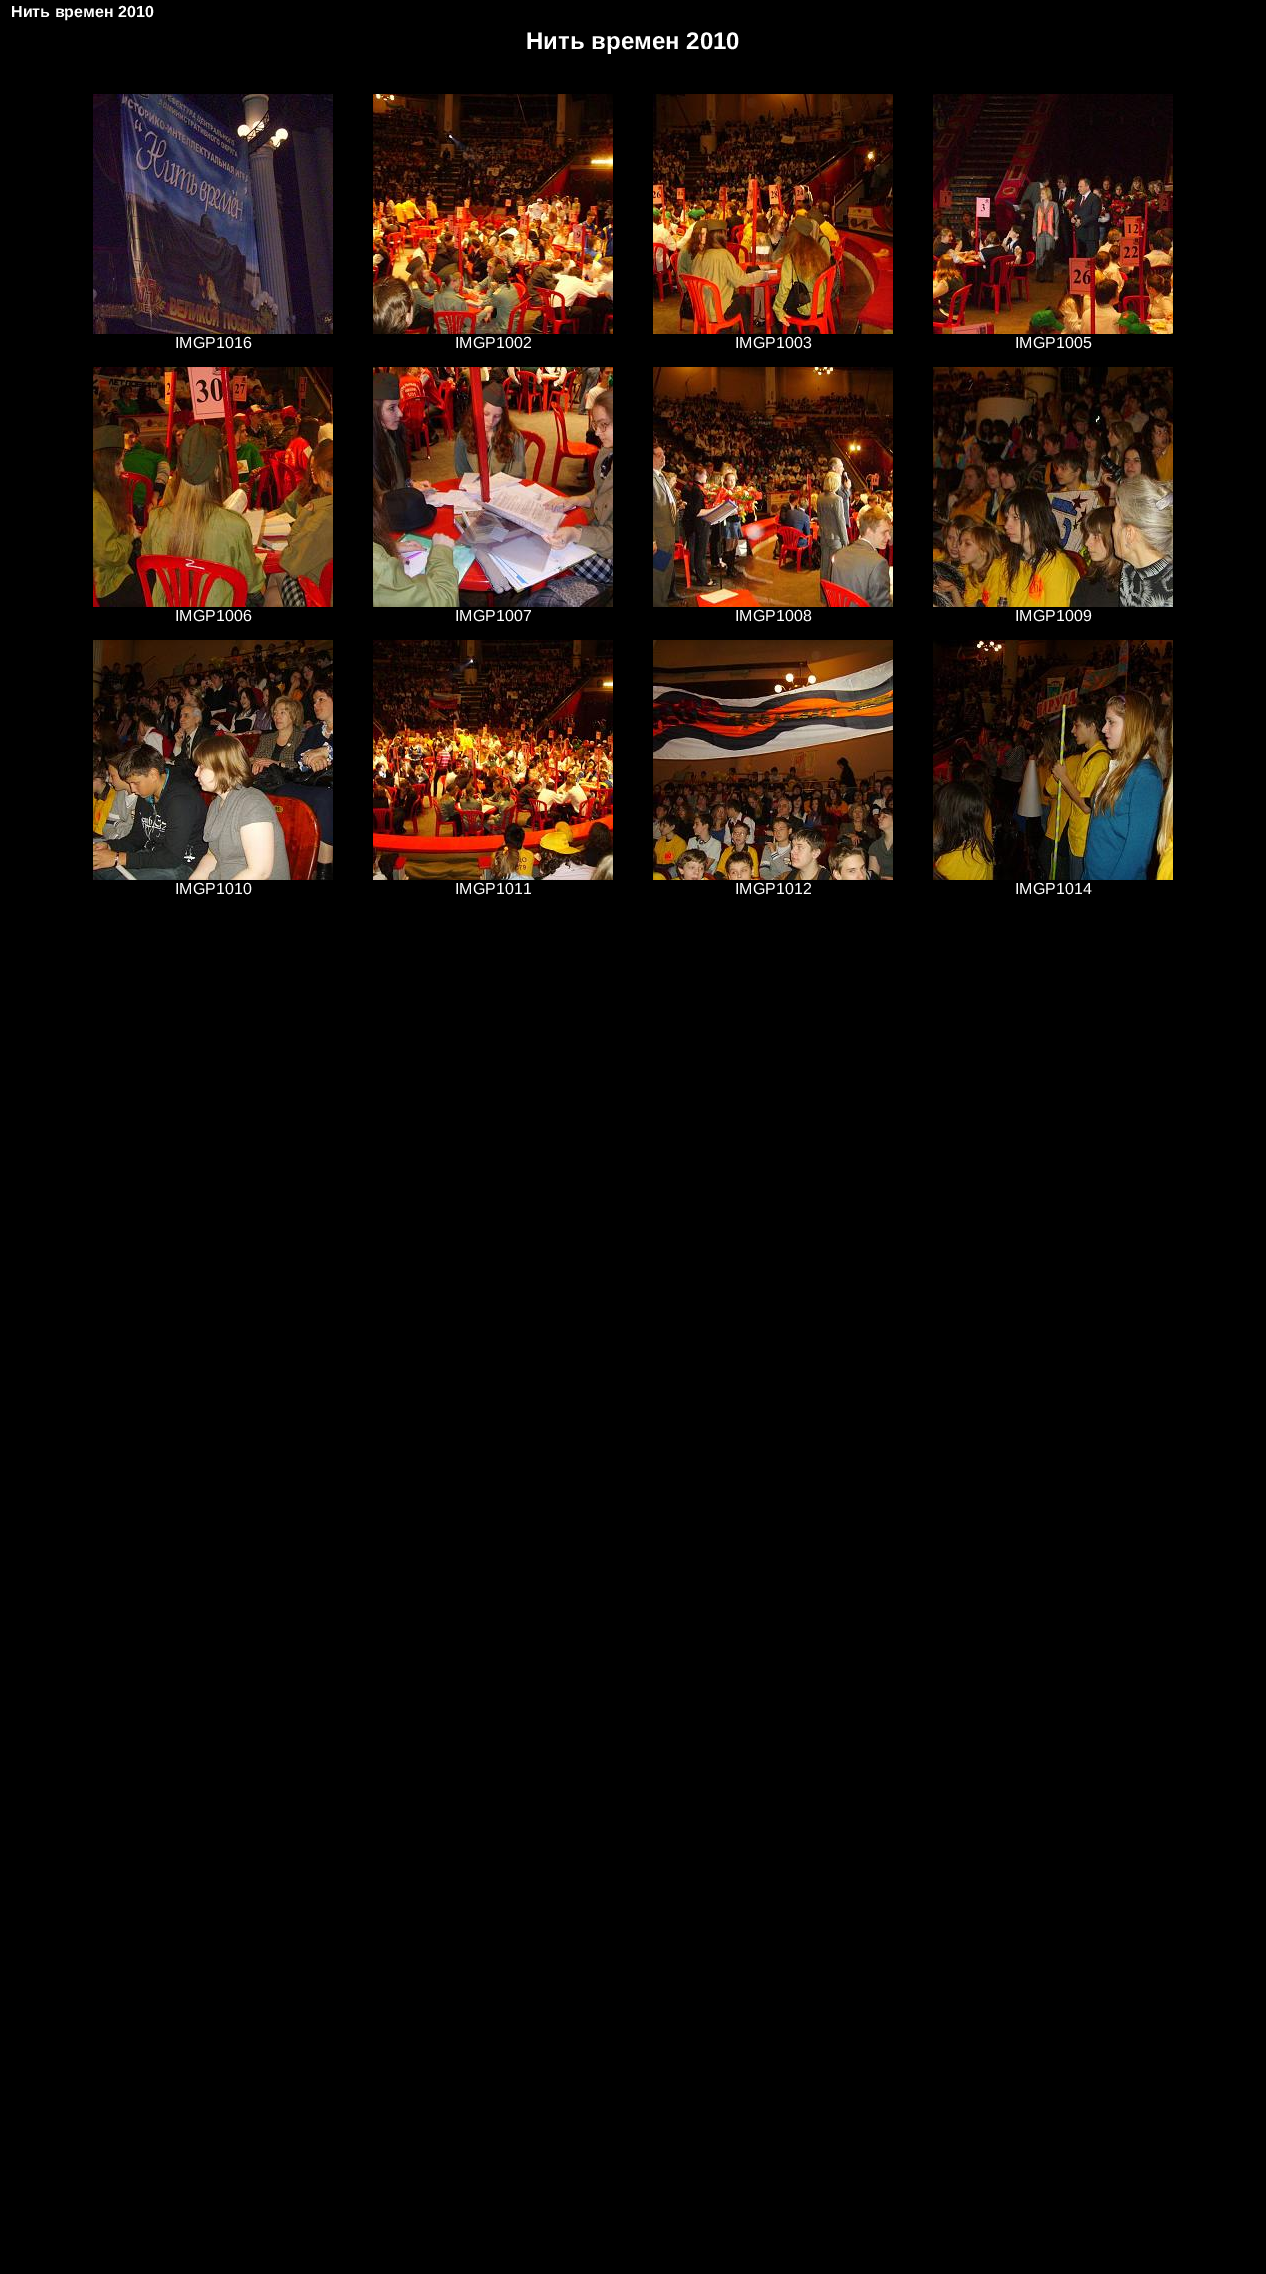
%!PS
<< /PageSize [1266 2274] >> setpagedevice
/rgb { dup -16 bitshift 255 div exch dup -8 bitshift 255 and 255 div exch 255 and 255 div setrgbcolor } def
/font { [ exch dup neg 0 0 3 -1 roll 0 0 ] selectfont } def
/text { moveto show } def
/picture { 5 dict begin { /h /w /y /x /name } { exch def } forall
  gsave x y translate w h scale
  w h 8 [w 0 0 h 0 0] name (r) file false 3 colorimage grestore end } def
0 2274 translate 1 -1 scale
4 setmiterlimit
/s1 { /LiberationSans-Bold 16 font 16#FFFFFF rgb } def
/s2 { /LiberationSans-Bold 24 font 16#FFFFFF rgb } def
/s3 { /LiberationSans-Regular 16 font 16#FFFFFF rgb } def
16#000000 rgb
0 0 1266 2274 rectfill
s1
(Нить времен 2010) 11 17 text
s2
(Нить времен 2010) 526 49 text
(pic1.raw) 93 94 240 240 picture
s3
(IMGP1016) 175 348 text
(pic2.raw) 373 94 240 240 picture
(IMGP1002) 455 348 text
(pic3.raw) 653 94 240 240 picture
(IMGP1003) 735 348 text
(pic4.raw) 933 94 240 240 picture
(IMGP1005) 1015 348 text
(pic5.raw) 93 367 240 240 picture
(IMGP1006) 175 621 text
(pic6.raw) 373 367 240 240 picture
(IMGP1007) 455 621 text
(pic7.raw) 653 367 240 240 picture
(IMGP1008) 735 621 text
(pic8.raw) 933 367 240 240 picture
(IMGP1009) 1015 621 text
(pic9.raw) 93 640 240 240 picture
(IMGP1010) 175 894 text
(pic10.raw) 373 640 240 240 picture
(IMGP1011) 455 894 text
(pic11.raw) 653 640 240 240 picture
(IMGP1012) 735 894 text
(pic12.raw) 933 640 240 240 picture
(IMGP1014) 1015 894 text
showpage
